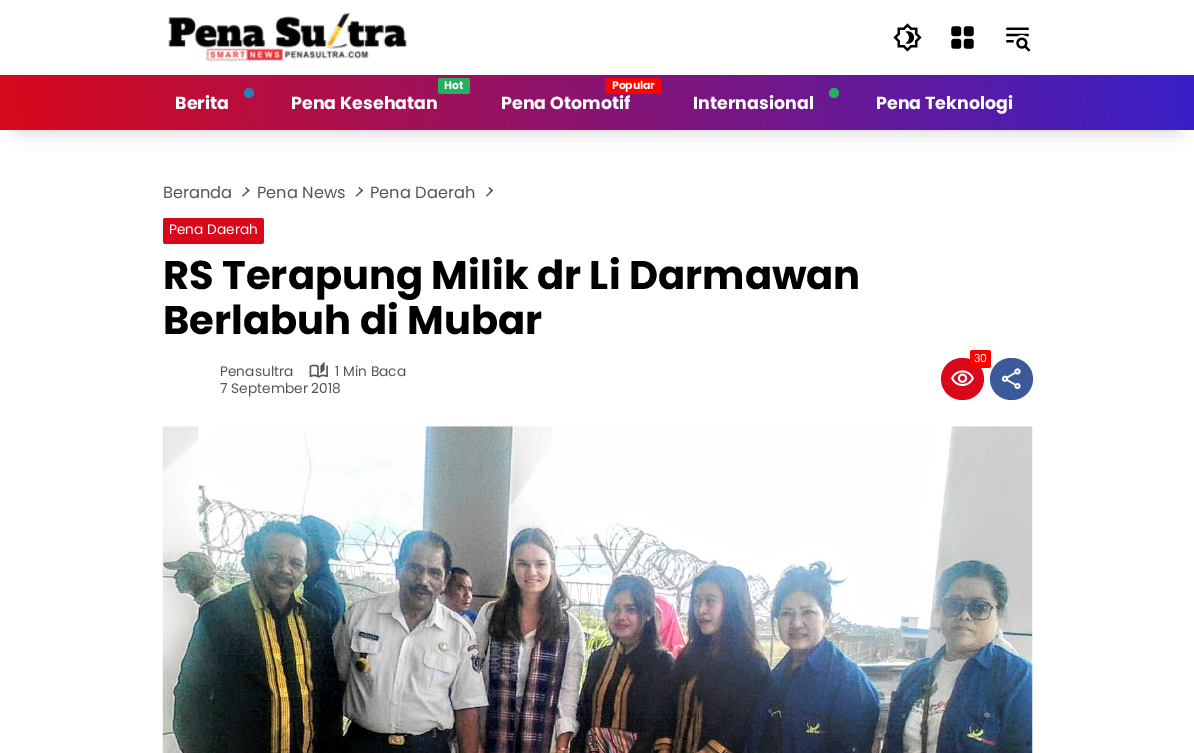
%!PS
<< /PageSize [1194 753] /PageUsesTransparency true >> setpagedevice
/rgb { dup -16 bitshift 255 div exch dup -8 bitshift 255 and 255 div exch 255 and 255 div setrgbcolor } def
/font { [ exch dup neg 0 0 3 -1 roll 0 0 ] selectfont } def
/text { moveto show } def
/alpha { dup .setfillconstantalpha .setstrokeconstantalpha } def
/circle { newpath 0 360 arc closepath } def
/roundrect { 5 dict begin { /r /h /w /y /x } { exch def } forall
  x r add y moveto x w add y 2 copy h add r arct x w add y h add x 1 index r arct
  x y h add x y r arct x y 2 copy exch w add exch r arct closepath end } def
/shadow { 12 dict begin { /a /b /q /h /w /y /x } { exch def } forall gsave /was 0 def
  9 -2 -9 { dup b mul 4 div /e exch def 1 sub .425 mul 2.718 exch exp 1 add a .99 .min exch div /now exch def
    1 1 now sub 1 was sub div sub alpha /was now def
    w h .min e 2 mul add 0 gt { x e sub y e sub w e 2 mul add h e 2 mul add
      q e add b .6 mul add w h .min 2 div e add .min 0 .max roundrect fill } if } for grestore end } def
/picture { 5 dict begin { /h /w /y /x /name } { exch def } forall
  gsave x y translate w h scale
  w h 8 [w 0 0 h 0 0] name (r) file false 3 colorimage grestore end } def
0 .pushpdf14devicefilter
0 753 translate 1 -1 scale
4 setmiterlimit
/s1 { /Poppins-Bold 17.5 font 16#FFFFFF rgb } def
/s2 { /Poppins-Regular 16.25 font 16#555555 rgb } def
/s3 { /Poppins-Regular 13.75 font 16#FFFFFF rgb } def
/s4 { /Poppins-Bold 40 font 16#000000 rgb } def
/s5 { /Poppins-Regular 11 font 16#FFFFFF rgb } def
/s6 { /Poppins-Regular 13.75 font 16#555555 rgb } def
16#FFFFFF rgb
0 0 1194 753 rectfill
(pic1.raw) 166 12 241 50 picture
(pic2.raw) 893 23 29 29 picture
(pic3.raw) 951 26 23 23 picture
(pic4.raw) 1006 27 25 25 picture
16#000000 rgb
19 113 1157 17 0 9.5 0.2 shadow
gsave 0 75 moveto 1194 75 lineto 1194 130 lineto 0 130 lineto closepath clip newpath
<< /ShadingType 2 /ColorSpace /DeviceRGB /Coords [13 206 1182 -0.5] /Extend [true true] /Function << /FunctionType 2 /Domain [0 1] /C0 [0.851 0.035 0.106] /C1 [0.224 0.125 0.788] /N 1 >> >> shfill grestore
16#2980B9 rgb
249 93 5 circle fill
s1
(Berita) 175 109 text
16#27AE60 rgb
438 78 32 16 2.5 roundrect fill
/Poppins-Bold 11 font
16#FFFFFF rgb
444 89 moveto -0.25 0 (Hot) ashow
s1
(Pena Kesehatan) 291 109 text
16#FF0000 rgb
605 78 56 16 2.5 roundrect fill
/Poppins-Bold 11 font
16#FFFFFF rgb
612 89 moveto -0.25 0 (Popular) ashow
s1
(Pena Otomotif) 501 109 text
16#27AE60 rgb
834 93 5 circle fill
s1
(Internasional) 693 109 text
(Pena Teknologi) 876 109 text
s2
(Beranda) 163 198 text
245 188 moveto 246 187 lineto 249.5 190.5 lineto 248.5 191.5 lineto closepath fill
242 196 moveto 248.5 189.5 lineto 249.5 190.5 lineto 243 196.5 lineto closepath fill
(Pena News) 257 198 text
358.5 188 moveto 359 187 lineto 363 190.5 lineto 362 191.5 lineto closepath fill
355.5 196 moveto 362 189.5 lineto 363 190.5 lineto 356.5 196.5 lineto closepath fill
(Pena Daerah) 370 198 text
488.5 188 moveto 489.5 187 lineto 493 190.5 lineto 492 191.5 lineto closepath fill
486 196 moveto 492 189.5 lineto 493 190.5 lineto 487 196.5 lineto closepath fill
16#D9091B rgb
163 218 101 26 2.5 roundrect fill
s3
(Pena Daerah) 169 234 text
s4
(RS Terapung Milik dr Li Darmawan) 163 289 text
(Berlabuh di Mubar) 163 334 text
16#D9091B rgb
941 358 43 42 21 roundrect fill
16#FF0000 rgb
970 350 21 18 2.5 roundrect fill
s5
(30) 974 362 text
(pic5.raw) 951 370 23 16 picture
16#3C5A99 rgb
990 358 43 42 21 roundrect fill
(pic6.raw) 1001 368 20 22 picture
s6
(Penasultra) 220 376 text
(pic7.raw) 309 361 19 17 picture
(1 Min Baca) 335 376 text
(7 September 2018) 220 393 text
(pic8.raw) 162 426 871 327 picture
.poppdf14devicefilter showpage
